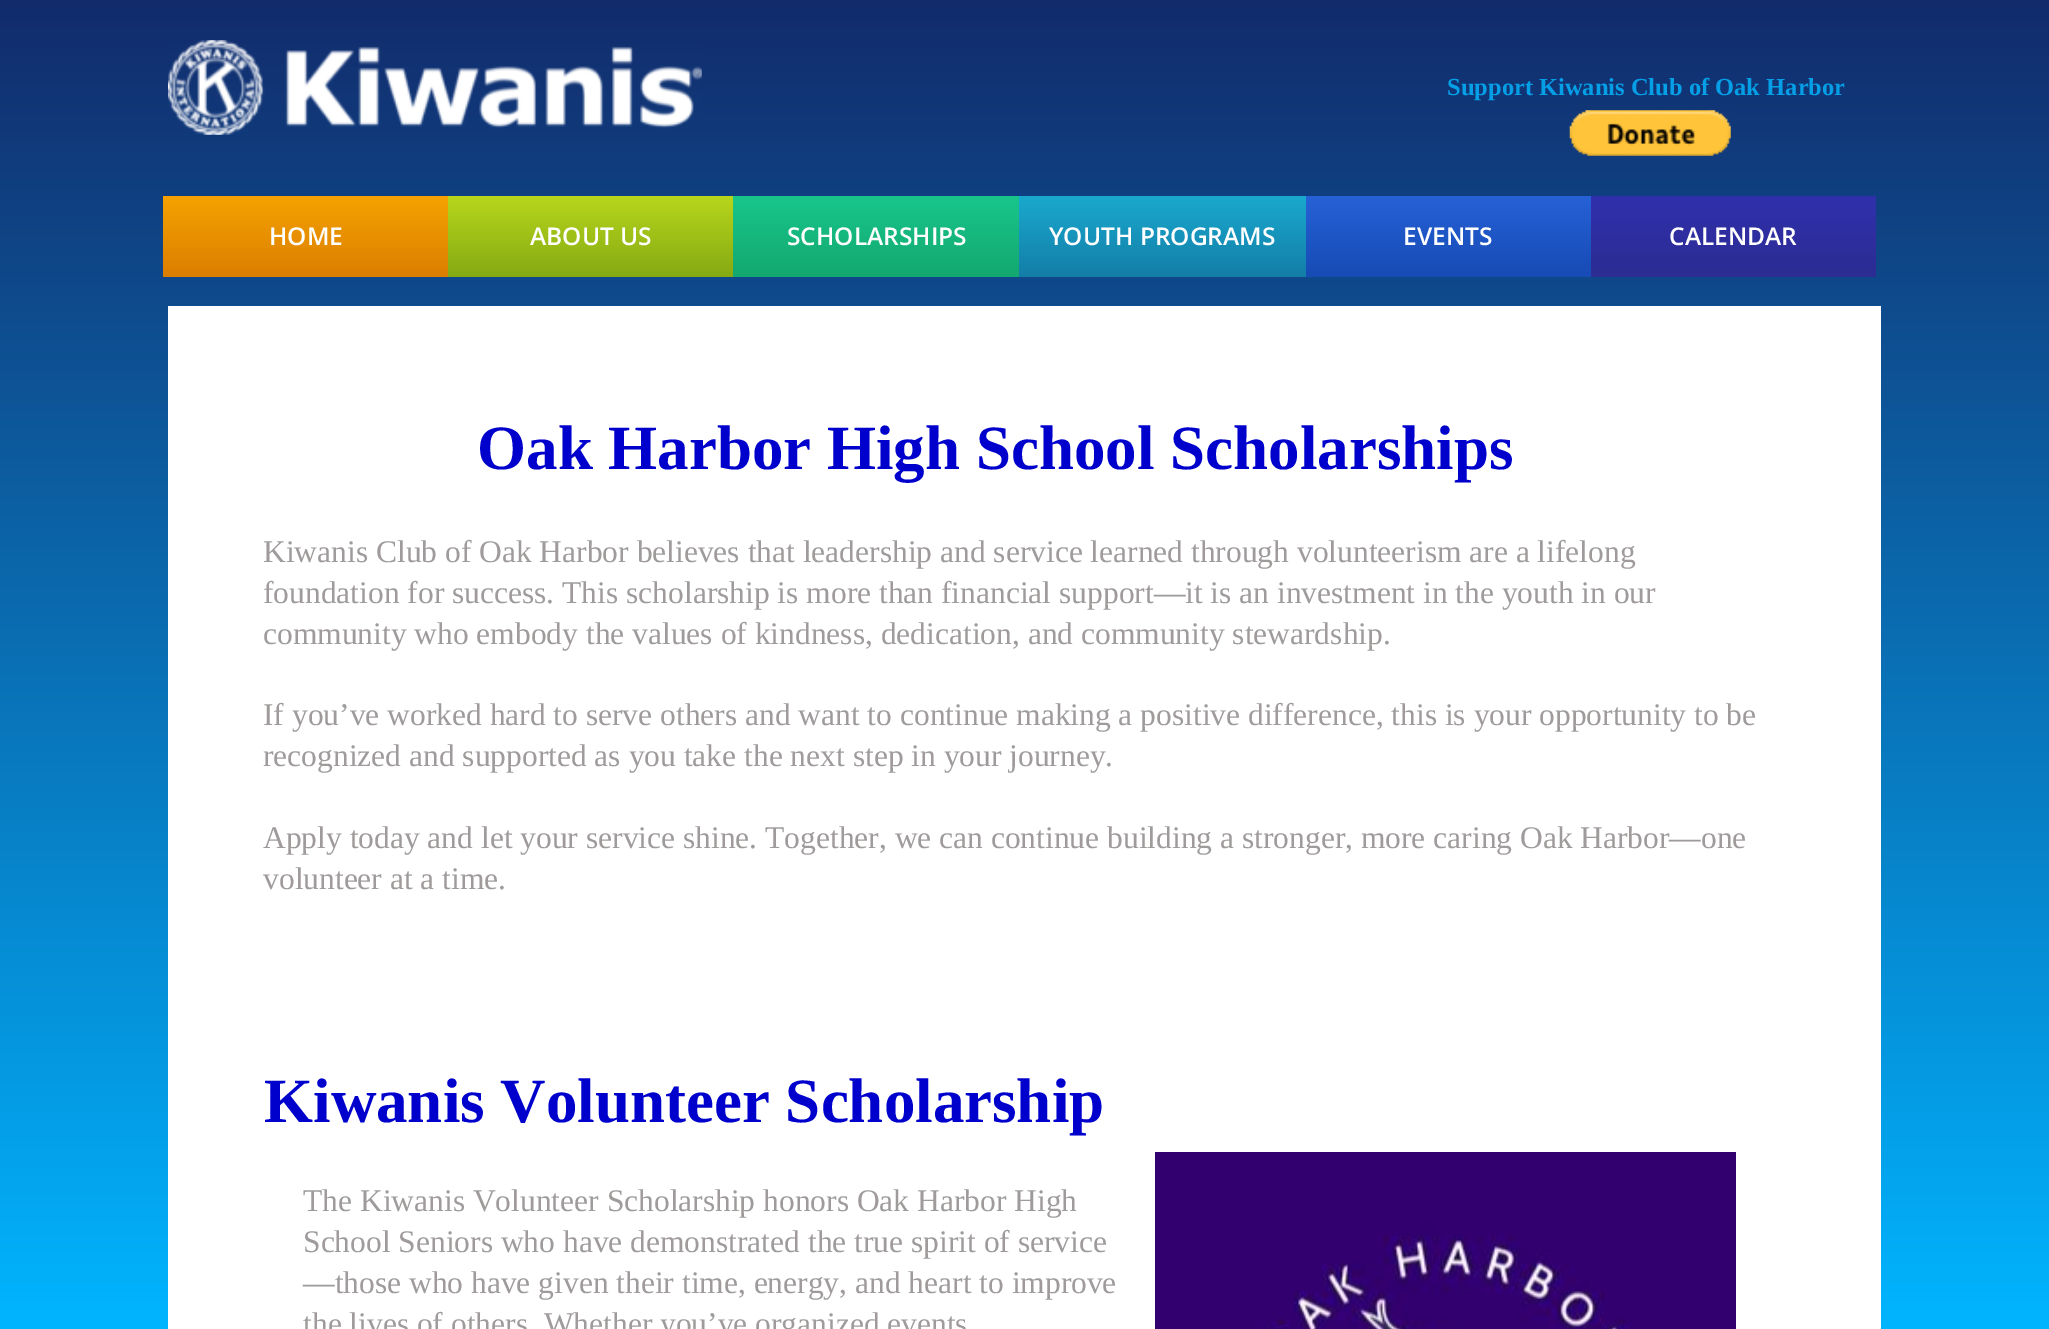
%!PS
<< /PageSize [2049 1329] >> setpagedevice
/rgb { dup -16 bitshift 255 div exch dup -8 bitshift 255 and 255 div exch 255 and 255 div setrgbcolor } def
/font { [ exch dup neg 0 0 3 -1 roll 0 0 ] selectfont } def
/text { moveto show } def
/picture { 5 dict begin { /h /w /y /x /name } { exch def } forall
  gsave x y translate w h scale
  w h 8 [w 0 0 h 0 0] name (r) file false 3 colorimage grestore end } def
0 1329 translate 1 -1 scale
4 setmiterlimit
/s1 { /LiberationSerif-Bold 24.5 font 16#049FE7 rgb } def
/s2 { /OpenSans-SemiBold 24.5 font 16#FFFFFF rgb } def
/s3 { /LiberationSerif-Bold 63 font 16#0000CD rgb } def
/s4 { /LiberationSerif-Regular 31.5 font 16#9F9B9B rgb } def
16#FFFFFF rgb
0 0 2049 1329 rectfill
gsave 0 0 moveto 2049 0 lineto 2049 1329 lineto 0 1329 lineto closepath clip newpath
<< /ShadingType 2 /ColorSpace /DeviceRGB /Coords [1025 0 1025 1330] /Extend [true true] /Function << /FunctionType 2 /Domain [0 1] /C0 [0.071 0.169 0.42] /C1 [0.004 0.71 1] /N 1 >> >> shfill grestore
168 306 1713 1023 rectfill
(pic1.raw) 168 40 534 95 picture
s1
(Support Kiwanis Club of Oak Harbor) 1447 95 text
(pic2.raw) 1569 110 162 46 picture
gsave 163 196 moveto 448 196 lineto 448 277 lineto 163 277 lineto closepath clip newpath
<< /ShadingType 2 /ColorSpace /DeviceRGB /Coords [305 196 305 277] /Extend [true true] /Function << /FunctionType 2 /Domain [0 1] /C0 [0.961 0.635 0] /C1 [0.859 0.494 0.004] /N 1 >> >> shfill grestore
s2
(HOME) 269 245 text
gsave 448 196 moveto 733 196 lineto 733 277 lineto 448 277 lineto closepath clip newpath
<< /ShadingType 2 /ColorSpace /DeviceRGB /Coords [591 196 591 277] /Extend [true true] /Function << /FunctionType 2 /Domain [0 1] /C0 [0.718 0.839 0.11] /C1 [0.522 0.667 0.075] /N 1 >> >> shfill grestore
(ABOUT US) 530 245 text
gsave 733 196 moveto 1019 196 lineto 1019 277 lineto 733 277 lineto closepath clip newpath
<< /ShadingType 2 /ColorSpace /DeviceRGB /Coords [876 196 876 277] /Extend [true true] /Function << /FunctionType 2 /Domain [0 1] /C0 [0.094 0.776 0.545] /C1 [0.075 0.659 0.439] /N 1 >> >> shfill grestore
(SCHOLARSHIPS) 787 245 text
gsave 1019 196 moveto 1306 196 lineto 1306 277 lineto 1019 277 lineto closepath clip newpath
<< /ShadingType 2 /ColorSpace /DeviceRGB /Coords [1162 196 1162 277] /Extend [true true] /Function << /FunctionType 2 /Domain [0 1] /C0 [0.102 0.663 0.808] /C1 [0.075 0.494 0.659] /N 1 >> >> shfill grestore
(YOUTH PROGRAMS) 1049 245 text
gsave 1306 196 moveto 1591 196 lineto 1591 277 lineto 1306 277 lineto closepath clip newpath
<< /ShadingType 2 /ColorSpace /DeviceRGB /Coords [1448 196 1448 277] /Extend [true true] /Function << /FunctionType 2 /Domain [0 1] /C0 [0.149 0.38 0.839] /C1 [0.09 0.294 0.71] /N 1 >> >> shfill grestore
(EVENTS) 1403 245 text
gsave 1591 196 moveto 1876 196 lineto 1876 277 lineto 1591 277 lineto closepath clip newpath
<< /ShadingType 2 /ColorSpace /DeviceRGB /Coords [1733 196 1733 277] /Extend [true true] /Function << /FunctionType 2 /Domain [0 1] /C0 [0.188 0.188 0.678] /C1 [0.173 0.173 0.576] /N 1 >> >> shfill grestore
(CALENDAR) 1669 245 text
s3
(Oak Harbor High School Scholarships) 477 469 text
s4
(Kiwanis Club of Oak Harbor believes that leadership and service learned through volunteerism are a lifelong) 263 562 text
(foundation for success. This scholarship is more than financial support—it is an investment in the youth in our) 263 603 text
(community who embody the values of kindness, dedication, and community stewardship.) 263 644 text
(If you’ve worked hard to serve others and want to continue making a positive difference, this is your opportunity to be) 263 725 text
(recognized and supported as you take the next step in your journey.) 263 766 text
(Apply today and let your service shine. Together, we can continue building a stronger, more caring Oak Harbor—one) 263 848 text
(volunteer at a time.) 263 889 text
s3
(Kiwanis Volunteer Scholarship) 264 1122 text
s4
(The Kiwanis Volunteer Scholarship honors Oak Harbor High) 303 1211 text
(School Seniors who have demonstrated the true spirit of service) 303 1252 text
(—those who have given their time, energy, and heart to improve) 303 1293 text
(the lives of others. Whether you’ve organized events) 303 1334 text
(pic3.raw) 1155 1152 581 177 picture
showpage
